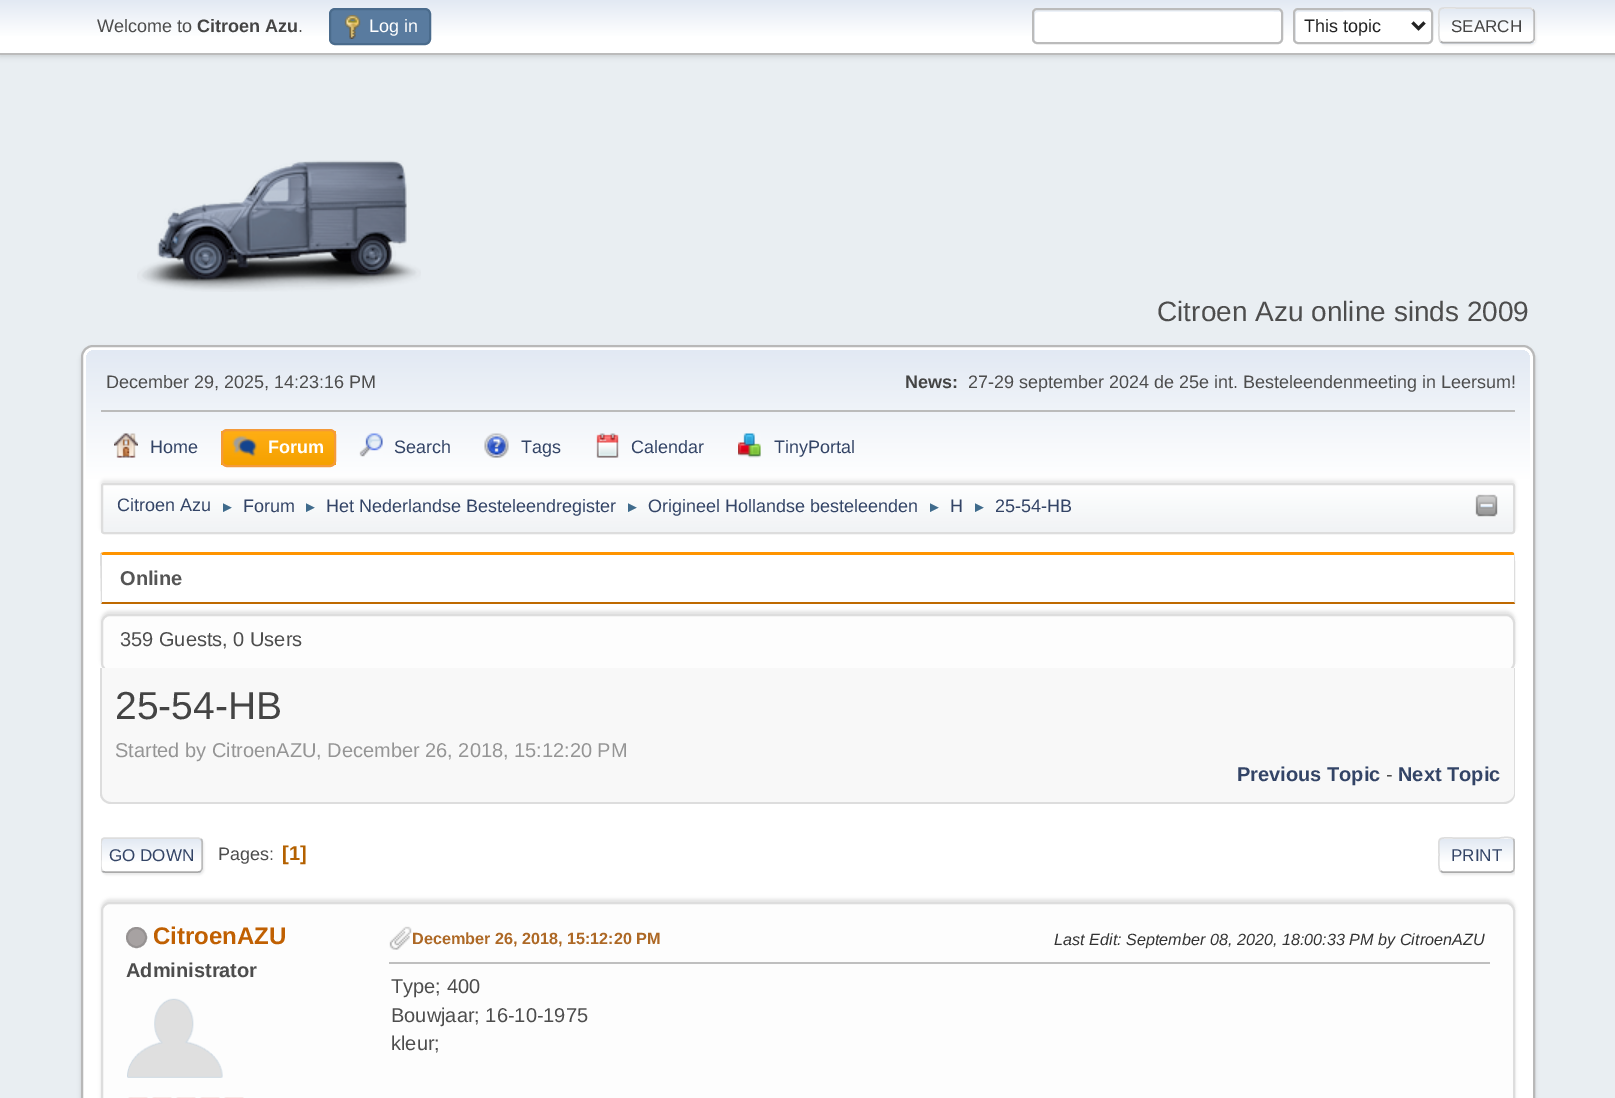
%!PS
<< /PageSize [1615 1098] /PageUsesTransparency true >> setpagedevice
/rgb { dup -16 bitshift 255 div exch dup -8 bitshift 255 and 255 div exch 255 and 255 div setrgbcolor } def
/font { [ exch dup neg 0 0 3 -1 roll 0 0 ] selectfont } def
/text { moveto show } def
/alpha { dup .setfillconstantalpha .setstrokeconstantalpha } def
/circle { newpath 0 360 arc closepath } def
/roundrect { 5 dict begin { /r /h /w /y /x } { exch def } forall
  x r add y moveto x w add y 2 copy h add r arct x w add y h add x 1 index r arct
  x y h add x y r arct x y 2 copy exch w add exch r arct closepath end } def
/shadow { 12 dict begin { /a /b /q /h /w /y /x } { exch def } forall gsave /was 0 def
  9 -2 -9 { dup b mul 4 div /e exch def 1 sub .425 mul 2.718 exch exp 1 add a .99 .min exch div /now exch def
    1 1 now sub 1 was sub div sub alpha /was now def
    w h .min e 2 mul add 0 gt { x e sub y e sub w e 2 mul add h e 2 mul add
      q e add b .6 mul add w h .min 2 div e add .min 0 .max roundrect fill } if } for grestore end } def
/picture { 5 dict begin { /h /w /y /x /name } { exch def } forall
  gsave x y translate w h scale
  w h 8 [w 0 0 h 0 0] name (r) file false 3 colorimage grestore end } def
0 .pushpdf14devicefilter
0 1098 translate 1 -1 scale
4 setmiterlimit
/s1 { /LiberationSans-Regular 18 font 16#4D4D4D rgb } def
/s2 { /LiberationSans-Bold 18 font 16#444444 rgb } def
/s3 { /LiberationSans-Regular 18 font 16#FFFFFF rgb } def
/s4 { /LiberationSans-Regular 18 font 16#222222 rgb } def
/s5 { /LiberationSans-Regular 17 font 16#444444 rgb } def
/s6 { /LiberationSans-Regular 28 font 16#4D4D4D rgb } def
/s7 { /LiberationSans-Regular 18 font 16#334466 rgb } def
/s8 { /LiberationSans-Bold 18 font 16#FFFFFF rgb } def
/s9 { /LiberationSans-Regular 15 font 16#3F6B8C rgb } def
/s10 { /LiberationSans-Bold 20 font 16#555555 rgb } def
/s11 { /LiberationSans-Regular 20 font 16#4D4D4D rgb } def
/s12 { /LiberationSans-Regular 39 font 16#444444 rgb } def
/s13 { /LiberationSans-Regular 20 font 16#959595 rgb } def
/s14 { /LiberationSans-Bold 20 font 16#334466 rgb } def
/s15 { /LiberationSans-Regular 17 font 16#334466 rgb } def
/s16 { /LiberationSans-Bold 20 font 16#B46100 rgb } def
/s17 { /LiberationSans-Bold 24 font 16#C06002 rgb } def
/s18 { /LiberationSans-Bold 20 font 16#4D4D4D rgb } def
/s19 { /LiberationSans-Bold 16.2 font 16#AD6825 rgb } def
/s20 { /LiberationSans-Italic 16.2 font 16#333333 rgb } def
16#E9EEF2 rgb
0 0 1615 1098 rectfill
16#000000 rgb
0 2 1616 54 0 3 0.16 shadow
gsave 0 0 moveto 1615 0 lineto 1615 53 lineto 0 53 lineto closepath clip newpath
<< /ShadingType 2 /ColorSpace /DeviceRGB /Coords [808 0 808 53] /Extend [true true] /Function << /FunctionType 3 /Domain [0 1] /Functions [<< /FunctionType 2 /Domain [0 1] /C0 [0.886 0.914 0.953] /C1 [1 1 1] /N 1 >> << /FunctionType 2 /Domain [0 1] /C0 [1 1 1] /C1 [1 1 1] /N 1 >>] /Bounds [0.7] /Encode [0 1 0 1] >> >> shfill grestore
16#BBBBBB rgb
0 53 1615 2 rectfill
s1
(Welcome to) 97 32 text
s2
(Citroen Azu) 197 32 text
s1
(.) 298 32 text
16#597B9F rgb
330 9 100 35 5 roundrect gsave fill grestore
16#4A6B8C rgb
2 setlinewidth
stroke
(pic1.raw) 344 15 17 24 picture
s3
(Log in) 369 32 text
1032 8 251 36 5 roundrect fill
16#ECF1F8 rgb
1038 12 moveto 1060 12 1280 11 1281 12 curveto 1281 10 1280 9 1278 9 curveto 1037 9 lineto 1035 9 1034 10 1034 12 curveto 1034 39 lineto 1034 40 1034 41 1035 41 curveto 1035 15 lineto 1035 13 1036 12 1038 12 curveto closepath fill
16#BBBBBB rgb
1033 9 249 34 4 roundrect stroke
16#FFFFFF rgb
1293 8 140 36 5 roundrect fill
16#ECF1F8 rgb
1299 12 moveto 1311 12 1430 11 1431 12 curveto 1431 10 1430 9 1428 9 curveto 1298 9 lineto 1296 9 1295 10 1295 12 curveto 1295 39 lineto 1295 40 1295 41 1296 41 curveto 1296 15 lineto 1296 13 1297 12 1299 12 curveto closepath fill
16#BBBBBB rgb
1294 9 138 34 4 roundrect stroke
16#222222 rgb
3 setlinewidth
1412.5 22.5 moveto 1418.5 28.5 lineto 1424.5 22.5 lineto stroke
(This topic) 1304 32 text
16#DDDDDD rgb
1440 9 96 36 5 1 0.57 shadow
gsave
1439 8 96 36 5 roundrect clip newpath
gsave 1439 8 moveto 1535 8 lineto 1535 9 lineto 1439 9 lineto closepath clip newpath
<< /ShadingType 2 /ColorSpace /DeviceRGB /Coords [1487 -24 1487 9] /Extend [true true] /Function << /FunctionType 3 /Domain [0 1] /Functions [<< /FunctionType 2 /Domain [0 1] /C0 [0.886 0.914 0.953] /C1 [1 1 1] /N 1 >> << /FunctionType 2 /Domain [0 1] /C0 [1 1 1] /C1 [1 1 1] /N 1 >>] /Bounds [0.7] /Encode [0 1 0 1] >> >> shfill grestore
gsave 1439 9 moveto 1535 9 lineto 1535 42 lineto 1439 42 lineto closepath clip newpath
<< /ShadingType 2 /ColorSpace /DeviceRGB /Coords [1487 9 1487 42] /Extend [true true] /Function << /FunctionType 3 /Domain [0 1] /Functions [<< /FunctionType 2 /Domain [0 1] /C0 [0.886 0.914 0.953] /C1 [1 1 1] /N 1 >> << /FunctionType 2 /Domain [0 1] /C0 [1 1 1] /C1 [1 1 1] /N 1 >>] /Bounds [0.7] /Encode [0 1 0 1] >> >> shfill grestore
gsave 1439 42 moveto 1535 42 lineto 1535 44 lineto 1439 44 lineto closepath clip newpath
<< /ShadingType 2 /ColorSpace /DeviceRGB /Coords [1487 42 1487 75] /Extend [true true] /Function << /FunctionType 3 /Domain [0 1] /Functions [<< /FunctionType 2 /Domain [0 1] /C0 [0.886 0.914 0.953] /C1 [1 1 1] /N 1 >> << /FunctionType 2 /Domain [0 1] /C0 [1 1 1] /C1 [1 1 1] /N 1 >>] /Bounds [0.7] /Encode [0 1 0 1] >> >> shfill grestore
grestore
16#BBBBBB rgb
1.5 setlinewidth
1532.5 9.5 moveto 1533.5 10 1534 11 1534 12 curveto 1534 39 lineto 1534 40 1533.5 41 1532.5 41.5 curveto stroke
16#AAAAAA rgb
1532.5 41.5 moveto 1530.5 42.5 lineto 1442.5 42.5 lineto 1440.5 41.5 lineto stroke
16#DDDDDD rgb
1440.5 41.5 moveto 1438 39.5 1439 28.5 1439 25.5 curveto 1439 5 1436 8 1457.5 8 curveto 1530 8 lineto 1532.5 9.5 lineto stroke
s5
(SEARCH) 1451 32 text
(pic2.raw) 137 160 284 132 picture
s6
(Citroen Azu online sinds 2009) 1157 321 text
16#000000 rgb
81 348 1454 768 12 2 0.14 shadow
16#FFFFFF rgb
82 346 1452 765 11 roundrect gsave fill grestore
16#B8B8B8 rgb
2 setlinewidth
stroke
gsave 95 350 moveto 1521 350 lineto 1526 350 1530 354 1530 359 curveto 1530 537 lineto 86 537 lineto 86 359 lineto 86 354 90 350 95 350 curveto closepath clip newpath
<< /ShadingType 2 /ColorSpace /DeviceRGB /Coords [808 349 808 537] /Extend [true true] /Function << /FunctionType 3 /Domain [0 1] /Functions [<< /FunctionType 2 /Domain [0 1] /C0 [0.886 0.914 0.953] /C1 [1 1 1] /N 1 >> << /FunctionType 2 /Domain [0 1] /C0 [1 1 1] /C1 [1 1 1] /N 1 >>] /Bounds [0.7] /Encode [0 1 0 1] >> >> shfill grestore
16#BBBBBB rgb
101 410 1414 2 rectfill
s1
(December 29, 2025, 14:23:16 PM) 106 388 text
s2
(News:) 905 388 text
s1
(27-29 september 2024 de 25e int. Besteleendenmeeting in Leersum!) 968 388 text
(pic3.raw) 114 433 24 25 picture
s7
(Home) 150 453 text
gsave
221 429 115 38 6 roundrect clip newpath
gsave 221 431 moveto 336 431 lineto 336 465 lineto 221 465 lineto closepath clip newpath
<< /ShadingType 2 /ColorSpace /DeviceRGB /Coords [278 431 278 465] /Extend [true true] /Function << /FunctionType 2 /Domain [0 1] /C0 [1 0.682 0.078] /C1 [0.961 0.631 0] /N 1 >> >> shfill grestore
grestore
16#F49A3A rgb
222 430 113 36 5 roundrect stroke
(pic4.raw) 232 435 25 22 picture
s8
(Forum) 268 453 text
(pic5.raw) 359 433 24 24 picture
s7
(Search) 394 453 text
(pic6.raw) 484 433 25 25 picture
(Tags) 521 453 text
(pic7.raw) 596 433 23 25 picture
(Calendar) 631 453 text
(pic8.raw) 738 433 23 25 picture
(TinyPortal) 774 453 text
16#000000 rgb
101 480 1414 51 3 1.5 0.08 shadow
gsave
101 483 1414 51 3 roundrect clip newpath
gsave 101 485 moveto 1515 485 lineto 1515 533 lineto 101 533 lineto closepath clip newpath
<< /ShadingType 2 /ColorSpace /DeviceRGB /Coords [808 484 808 533] /Extend [true true] /Function << /FunctionType 3 /Domain [0 1] /Functions [<< /FunctionType 2 /Domain [0 1] /C0 [1 1 1] /C1 [0.945 0.953 0.961] /N 1 >> << /FunctionType 2 /Domain [0 1] /C0 [0.945 0.953 0.961] /C1 [0.945 0.953 0.961] /N 1 >>] /Bounds [0.95] /Encode [0 1 0 1] >> >> shfill grestore
grestore
16#DDDDDD rgb
102 484 1412 49 2 roundrect stroke
s7
(Citroen Azu) 117 511 text
s9
(►) 220 512 text
s7
(Forum) 243 512 text
s9
(►) 303 512 text
s7
(Het Nederlandse Besteleendregister) 326 512 text
s9
(►) 625 512 text
s7
(Origineel Hollandse besteleenden) 648 512 text
s9
(►) 927 512 text
s7
(H) 950 512 text
s9
(►) 972 512 text
s7
(25-54-HB) 995 512 text
(pic9.raw) 1475 494 23 23 picture
16#FF9400 rgb
104 552 moveto 101 553 lineto 102 555 lineto 1514 555 lineto 1514 553 lineto 1512 552 lineto closepath fill
16#DDDDDD rgb
1515 604 moveto 1515 598 1516 555 1514 553 curveto 1514 555 lineto 1514 602 lineto closepath fill
16#BF6900 rgb
1515 604 moveto 101 604 lineto 102 602 lineto 1514 602 lineto closepath fill
16#DDDDDD rgb
100 553 moveto 101 553 lineto 102 555 lineto 102 602 lineto 101 604 lineto closepath fill
s10
(Online) 120 585 text
16#000000 rgb
101 611 1414 58 9 1.5 0.1 shadow
16#FDFDFD rgb
102 615 1412 56 8 roundrect gsave fill grestore
16#DDDDDD rgb
stroke
s11
(359 Guests, 0 Users) 120 646 text
16#F8F8F8 rgb
101 668 moveto 1515 668 lineto 1515 793 lineto 1515 799 1510 804 1504 804 curveto 112 804 lineto 106 804 101 799 101 793 curveto closepath fill
16#DDDDDD rgb
100 668 moveto 1515 668 lineto 1515 794 lineto 1515 799 1510 804 1504 804 curveto 111 804 lineto 105 804 100 799 100 794 curveto closepath 102 668 moveto 1514 668 lineto 1514 794 lineto 1514 798 1509 802 1504 802 curveto 111 802 lineto 106 802 102 798 102 794 curveto closepath eofill
s12
(25-54-HB) 115 719 text
s13
(Started by CitroenAZU, December 26, 2018, 15:12:20 PM) 115 757 text
s14
(Previous Topic) 1237 781 text
s11
(-) 1386 781 text
s14
(Next Topic) 1398 781 text
16#DDDDDD rgb
102 839 102 36 5 1 0.57 shadow
16#FFFFFF rgb
101 837 102 36 5 roundrect fill
gsave
101 837 102 36 5 roundrect clip newpath
gsave 101 839 moveto 203 839 lineto 203 872 lineto 101 872 lineto closepath clip newpath
<< /ShadingType 2 /ColorSpace /DeviceRGB /Coords [152 839 152 872] /Extend [true true] /Function << /FunctionType 3 /Domain [0 1] /Functions [<< /FunctionType 2 /Domain [0 1] /C0 [0.886 0.914 0.953] /C1 [1 1 1] /N 1 >> << /FunctionType 2 /Domain [0 1] /C0 [1 1 1] /C1 [1 1 1] /N 1 >>] /Bounds [0.7] /Encode [0 1 0 1] >> >> shfill grestore
gsave 101 872 moveto 203 872 lineto 203 873 lineto 101 873 lineto closepath clip newpath
<< /ShadingType 2 /ColorSpace /DeviceRGB /Coords [152 872 152 905] /Extend [true true] /Function << /FunctionType 3 /Domain [0 1] /Functions [<< /FunctionType 2 /Domain [0 1] /C0 [0.886 0.914 0.953] /C1 [1 1 1] /N 1 >> << /FunctionType 2 /Domain [0 1] /C0 [1 1 1] /C1 [1 1 1] /N 1 >>] /Bounds [0.7] /Encode [0 1 0 1] >> >> shfill grestore
grestore
16#BBBBBB rgb
1.5 setlinewidth
200.5 839 moveto 201.5 839.5 202 840.5 202 841.5 curveto 202 868.5 lineto 202 869.5 201.5 870.5 200.5 871 curveto stroke
16#AAAAAA rgb
200.5 871 moveto 200 872 199 872 198 872 curveto 105 872 lineto 104 872 103 872 102.5 871 curveto stroke
gsave
101 827 1414 57 rectclip
16#DDDDDD rgb
102.5 871 moveto 100 868.5 101 862.5 101 859.5 curveto 101 846 lineto 101 843 100.5 838 105 838 curveto 198 838 lineto 200.5 839 lineto stroke
grestore
s15
(GO DOWN) 109 861 text
s1
(Pages:) 218 860 text
s16
([1]) 282 860 text
gsave
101 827 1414 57 rectclip
16#DDDDDD rgb
1440 839 77 36 5 1 0.57 shadow
grestore
16#FFFFFF rgb
1439 837 76 36 5 roundrect fill
gsave
1439 837 76 36 5 roundrect clip newpath
gsave 1439 839 moveto 1515 839 lineto 1515 872 lineto 1439 872 lineto closepath clip newpath
<< /ShadingType 2 /ColorSpace /DeviceRGB /Coords [1477 839 1477 872] /Extend [true true] /Function << /FunctionType 3 /Domain [0 1] /Functions [<< /FunctionType 2 /Domain [0 1] /C0 [0.886 0.914 0.953] /C1 [1 1 1] /N 1 >> << /FunctionType 2 /Domain [0 1] /C0 [1 1 1] /C1 [1 1 1] /N 1 >>] /Bounds [0.7] /Encode [0 1 0 1] >> >> shfill grestore
gsave 1439 872 moveto 1515 872 lineto 1515 873 lineto 1439 873 lineto closepath clip newpath
<< /ShadingType 2 /ColorSpace /DeviceRGB /Coords [1477 872 1477 905] /Extend [true true] /Function << /FunctionType 3 /Domain [0 1] /Functions [<< /FunctionType 2 /Domain [0 1] /C0 [0.886 0.914 0.953] /C1 [1 1 1] /N 1 >> << /FunctionType 2 /Domain [0 1] /C0 [1 1 1] /C1 [1 1 1] /N 1 >>] /Bounds [0.7] /Encode [0 1 0 1] >> >> shfill grestore
grestore
16#BBBBBB rgb
1513 839 moveto 1514 839.5 1514 840.5 1514 841.5 curveto 1514 868.5 lineto 1514 869.5 1514 870.5 1513 871 curveto stroke
16#AAAAAA rgb
1513 871 moveto 1511 872 lineto 1442.5 872 lineto 1440.5 871 lineto stroke
16#DDDDDD rgb
1440.5 871 moveto 1438 869 1439 858 1439 855 curveto 1439 836 1436 838 1454 838 curveto 1499 838 lineto 1500.5 838 1510.5 836 1513 839 curveto stroke
s15
(PRINT) 1451 861 text
16#000000 rgb
101 899 1414 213 9 1.5 0.1 shadow
16#FDFDFD rgb
102 903 1412 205 8 roundrect gsave fill grestore
16#DDDDDD rgb
2 setlinewidth
stroke
16#A7A2A2 rgb
136.5 937.5 9.5 circle gsave fill grestore
16#969292 rgb
stroke
s17
(CitroenAZU) 153 944 text
s18
(Administrator) 126 977 text
(pic10.raw) 127 998 96 80 picture
(pic11.raw) 128 1097 20 1 picture
(pic11.raw) 152 1097 20 1 picture
(pic11.raw) 176 1097 20 1 picture
(pic11.raw) 200 1097 20 1 picture
(pic11.raw) 224 1097 20 1 picture
(pic12.raw) 389 926 23 24 picture
s19
(December 26, 2018, 15:12:20 PM) 412 944 text
s20
(Last Edit: September 08, 2020, 18:00:33 PM by CitroenAZU) 1054 945 text
16#BFBFBF rgb
389 962 1101 2 rectfill
s11
(Type; 400) 391 993 text
(Bouwjaar; 16-10-1975) 391 1022 text
(kleur;) 391 1050 text
.poppdf14devicefilter showpage
